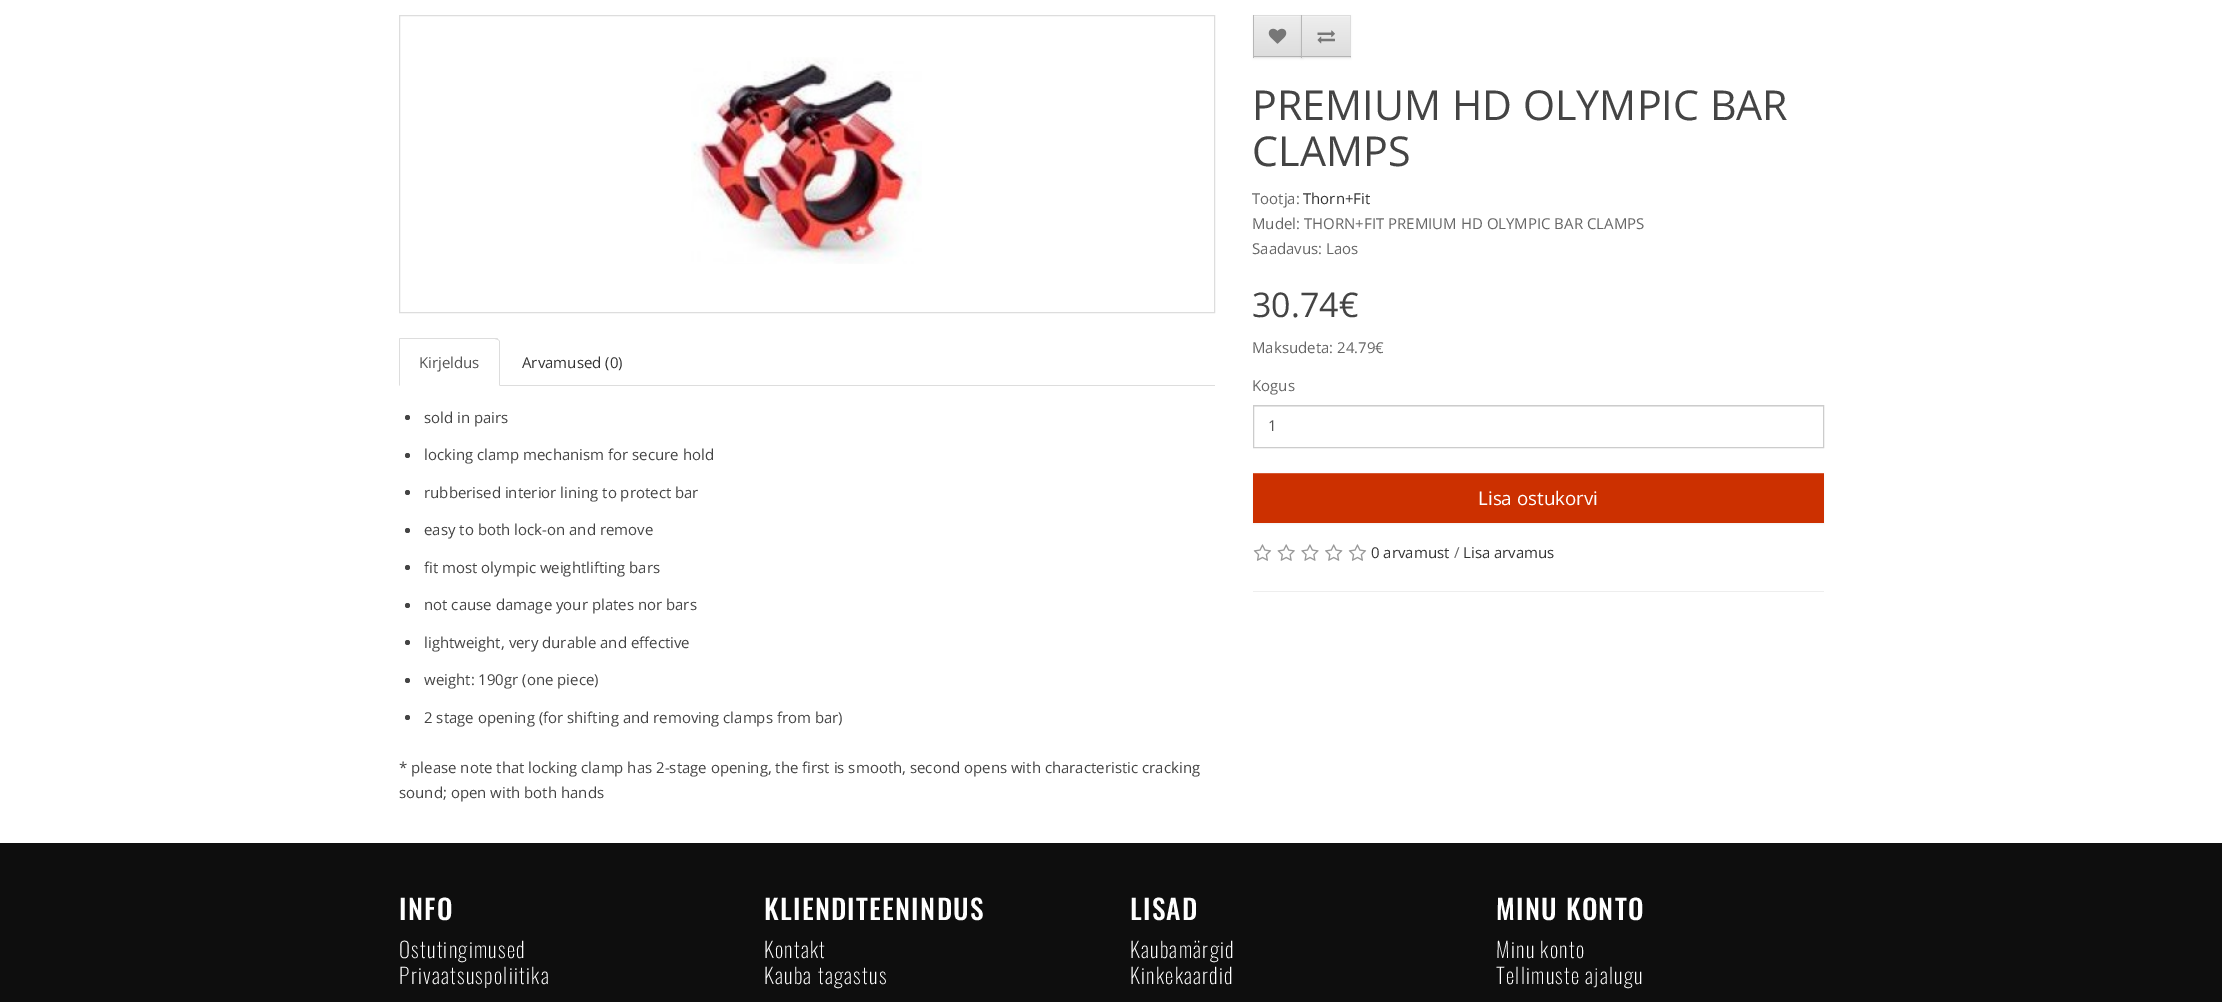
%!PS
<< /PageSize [2222 1002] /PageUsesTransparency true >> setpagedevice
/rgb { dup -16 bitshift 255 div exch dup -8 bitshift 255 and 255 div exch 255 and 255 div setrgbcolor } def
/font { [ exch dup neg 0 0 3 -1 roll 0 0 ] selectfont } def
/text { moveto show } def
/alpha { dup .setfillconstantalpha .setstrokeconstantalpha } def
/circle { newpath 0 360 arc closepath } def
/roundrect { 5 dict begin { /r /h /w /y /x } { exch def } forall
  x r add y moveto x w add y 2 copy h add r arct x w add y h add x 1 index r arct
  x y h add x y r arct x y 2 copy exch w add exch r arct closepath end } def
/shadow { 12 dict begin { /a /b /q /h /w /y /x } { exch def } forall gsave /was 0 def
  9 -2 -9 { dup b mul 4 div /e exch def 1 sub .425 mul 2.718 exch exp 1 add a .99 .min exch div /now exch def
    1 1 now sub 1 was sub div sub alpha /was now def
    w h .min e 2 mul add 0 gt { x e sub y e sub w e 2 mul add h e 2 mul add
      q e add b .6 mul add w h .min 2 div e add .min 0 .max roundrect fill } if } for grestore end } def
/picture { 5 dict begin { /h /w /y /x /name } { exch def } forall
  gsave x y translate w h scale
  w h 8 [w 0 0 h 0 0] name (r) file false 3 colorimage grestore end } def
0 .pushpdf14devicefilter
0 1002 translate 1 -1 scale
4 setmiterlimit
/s1 { /OpenSans-Regular 15 font 16#555555 rgb } def
/s2 { /OpenSans-Regular 15 font 16#333333 rgb } def
/s3 { /OpenSans-Regular 15 font 16#444444 rgb } def
/s4 { /OpenSans-Regular 41.25 font 16#444444 rgb } def
/s5 { /OpenSans-Regular 15 font 16#666666 rgb } def
/s6 { /OpenSans-Regular 34 font 16#444444 rgb } def
/s7 { /OpenSans-Regular 18.75 font 16#FFFFFF rgb } def
16#FFFFFF rgb
0 0 2222 1002 rectfill
16#DDDDDD rgb
399.5 15.5 815 297 rectstroke
(pic1.raw) 691 57 231 207 picture
500 385 715 1 rectfill
498 339 moveto 498 338 496 338 495 338 curveto 399 338 lineto 400 339 lineto 495 339 lineto 498 340 lineto closepath fill
500 386 moveto 500 341 lineto 498 339 lineto 498 340 lineto 499 341 lineto 499 385 lineto closepath fill
399 338 moveto 399 386 lineto 400 385 lineto 400 339 lineto closepath fill
s1
(Kirjeldus) 419 368 text
s2
(Arvamused \(0\)) 522 368 text
16#444444 rgb
407.5 417.5 2.5 circle fill
(sold in pairs) 424 423 text
407.5 455.5 2.5 circle fill
(locking clamp mechanism for secure hold) 424 460 text
407.5 492.5 2.5 circle fill
(rubberised interior lining to protect bar) 424 498 text
407.5 530.5 2.5 circle fill
(easy to both lock-on and remove) 424 535 text
407.5 567.5 2.5 circle fill
(fit most olympic weightlifting bars) 424 573 text
407.5 605.5 2.5 circle fill
(not cause damage your plates nor bars) 424 610 text
407.5 642.5 2.5 circle fill
(lightweight, very durable and effective) 424 648 text
407.5 680.5 2.5 circle fill
(weight: 190gr \(one piece\)) 424 685 text
407.5 717.5 2.5 circle fill
(2 stage opening \(for shifting and removing clamps from bar\)) 424 723 text
(* please note that locking clamp has 2-stage opening, the first is smooth, second opens with characteristic cracking) 399 773 text
(sound; open with both hands) 399 798 text
16#000000 rgb
1253 16 50 43 0 1 0.05 shadow
16#E7E7E7 rgb
1254 57 47 1 rectfill
gsave 1254 17 moveto 1301 17 lineto 1301 56 lineto 1254 56 lineto closepath clip newpath
<< /ShadingType 2 /ColorSpace /DeviceRGB /Coords [1278 16 1278 56] /Extend [true true] /Function << /FunctionType 2 /Domain [0 1] /C0 [0.933 0.933 0.933] /C1 [0.867 0.867 0.867] /N 1 >> >> shfill grestore
16#F1F1F1 rgb
1254 16 47 1 rectfill
16#DDDDDD rgb
1253 15 50 1 rectfill
16#B3B3B3 rgb
1253 56 50 1 rectfill
16#B7B7B7 rgb
1253 15 1 43 rectfill
(pic2.raw) 1268 28 19 16 picture
16#000000 rgb
1301 16 50 43 0 1 0.05 shadow
16#E7E7E7 rgb
1302 57 48 1 rectfill
gsave 1302 16 moveto 1350 16 lineto 1350 56 lineto 1302 56 lineto closepath clip newpath
<< /ShadingType 2 /ColorSpace /DeviceRGB /Coords [1326 16 1326 56] /Extend [true true] /Function << /FunctionType 2 /Domain [0 1] /C0 [0.933 0.933 0.933] /C1 [0.867 0.867 0.867] /N 1 >> >> shfill grestore
16#F1F1F1 rgb
1303 16 47 1 rectfill
16#DDDDDD rgb
1301 15 50 1 rectfill
1350 15 1 43 rectfill
16#B3B3B3 rgb
1301 56 50 1 rectfill
16#B7B7B7 rgb
1301 15 1 43 rectfill
(pic3.raw) 1317 30 18 14 picture
s4
(PREMIUM HD OLYMPIC BAR) 1252 120 text
(CLAMPS) 1252 166 text
s5
(Tootja:) 1252 204 text
s2
(Thorn+Fit) 1303 204 text
s5
(Mudel: THORN+FIT PREMIUM HD OLYMPIC BAR CLAMPS) 1252 229 text
(Saadavus: Laos) 1252 254 text
s6
(30.74€) 1252 317 text
s5
(Maksudeta: 24.79€) 1252 353 text
(Kogus) 1252 391 text
16#ECECEC rgb
1254 406 569 1 rectfill
16#CCCCCC rgb
1253.5 405.5 570 42 rectstroke
s1
(1) 1268 431 text
16#000000 rgb
1253 474 571 50 0 1 0.05 shadow
16#CC3000 rgb
1253 474 571 49 rectfill
16#D65933 rgb
1253 473 571 1 rectfill
s7
(Lisa ostukorvi) 1478 505 text
(pic4.raw) 1253 544 19 17 picture
(pic5.raw) 1277 544 18 17 picture
(pic6.raw) 1301 544 18 17 picture
(pic7.raw) 1325 544 18 17 picture
(pic4.raw) 1348 544 19 17 picture
s2
(0 arvamust) 1371 558 text
s5
(/) 1454 558 text
s2
(Lisa arvamus) 1463 558 text
16#EEEEEE rgb
1253 591 571 1 rectfill
16#0E0E0E rgb
0 843 2222 159 rectfill
/Oswald-Medium 27.5 font
16#FFFFFF rgb
399 920 moveto 1.25 0 (INFO) ashow
/Oswald-ExtraLight 21.25 font
399 958 moveto 1.25 0 (Ostutingimused) ashow
399 984 moveto 1.25 0 (Privaatsuspoliitika) ashow
/Oswald-Medium 27.5 font
764 920 moveto 1.25 0 (KLIENDITEENINDUS) ashow
/Oswald-ExtraLight 21.25 font
764 958 moveto 1.25 0 (Kontakt) ashow
764 984 moveto 1.25 0 (Kauba tagastus) ashow
/Oswald-Medium 27.5 font
1130 920 moveto 1.25 0 (LISAD) ashow
/Oswald-ExtraLight 21.25 font
1130 958 moveto 1.25 0 (Kaubamärgid) ashow
1130 984 moveto 1.25 0 (Kinkekaardid) ashow
/Oswald-Medium 27.5 font
1496 920 moveto 1.25 0 (MINU KONTO) ashow
/Oswald-ExtraLight 21.25 font
1496 958 moveto 1.25 0 (Minu konto) ashow
1496 984 moveto 1.25 0 (Tellimuste ajalugu) ashow
.poppdf14devicefilter showpage
